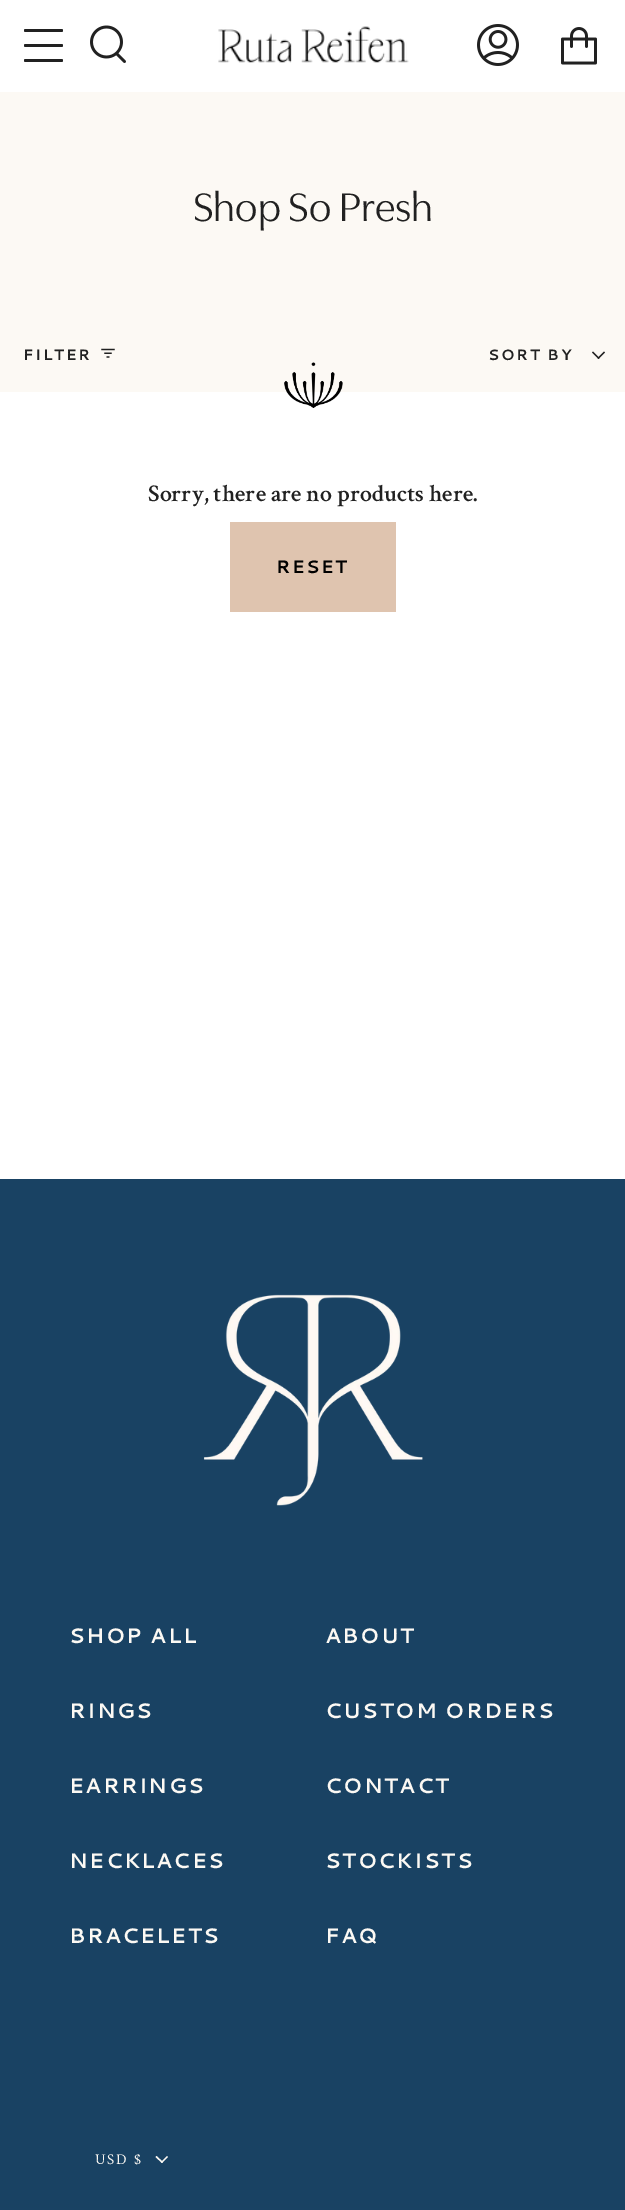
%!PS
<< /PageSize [625 2210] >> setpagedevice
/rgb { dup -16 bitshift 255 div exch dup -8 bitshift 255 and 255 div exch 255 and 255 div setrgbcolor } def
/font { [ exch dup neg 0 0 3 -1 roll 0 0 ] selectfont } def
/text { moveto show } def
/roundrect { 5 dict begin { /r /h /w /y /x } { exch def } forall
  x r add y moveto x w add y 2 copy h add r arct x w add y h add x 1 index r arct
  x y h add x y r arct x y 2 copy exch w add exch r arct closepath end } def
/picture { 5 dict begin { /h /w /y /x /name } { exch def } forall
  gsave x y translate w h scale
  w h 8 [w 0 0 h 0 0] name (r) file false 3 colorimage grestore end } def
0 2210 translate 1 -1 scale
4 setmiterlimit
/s1 { /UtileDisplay-Regular 41.5 font 16#212121 rgb } def
/s2 { /CrimsonText-SemiBold 24 font 16#212121 rgb } def
16#FFFFFF rgb
0 0 625 2210 rectfill
16#212121 rgb
24 29 39 3 1.5 roundrect fill
24 44 39 3 1.5 roundrect fill
24 59 39 3 1.5 roundrect fill
(pic1.raw) 90 25 36 38 picture
(pic2.raw) 218 26 191 37 picture
(pic3.raw) 477 24 42 42 picture
(pic4.raw) 561 27 36 38 picture
16#FCF9F4 rgb
0 92 625 300 rectfill
s1
(Shop So Presh) 193 221 text
/Cantarell-Bold 15 font
23 360 moveto 1.75 0 (FILTER) ashow
(pic5.raw) 101 348 14 10 picture
488 360 moveto 1.75 0 (SORT BY) ashow
597.5 358 moveto 604 351.5 lineto 605 352.5 lineto 598.5 359 lineto closepath fill
592 352.5 moveto 593 351.5 lineto 599.5 358 lineto 598.5 359 lineto closepath fill
(pic6.raw) 284 362 59 46 picture
s2
(Sorry, there are no products here.) 148 501 text
16#DFC4AF rgb
230 522 166 90 rectfill
/Cantarell-Bold 18 font
16#000000 rgb
276 573 moveto 1.5 0 (RESET) ashow
16#194263 rgb
0 1179 625 1031 rectfill
(pic7.raw) 203 1294 220 212 picture
/Cantarell-Bold 21 font
16#FCF9F4 rgb
69 1643 moveto 1.5 0 (SHOP ALL) ashow
69 1718 moveto 1.5 0 (RINGS) ashow
69 1793 moveto 1.5 0 (EARRINGS) ashow
69 1868 moveto 1.5 0 (NECKLACES) ashow
69 1943 moveto 1.5 0 (BRACELETS) ashow
325 1643 moveto 1.5 0 (ABOUT) ashow
325 1718 moveto 1.5 0 (CUSTOM ORDERS) ashow
325 1793 moveto 1.5 0 (CONTACT) ashow
325 1868 moveto 1.5 0 (STOCKISTS) ashow
325 1943 moveto 1.5 0 (FAQ) ashow
/CrimsonText-Regular 15 font
95 2164 moveto 1.75 0 (USD $) ashow
161 2162 moveto 167 2156 lineto 168 2157 lineto 162 2163 lineto closepath fill
155.5 2157 moveto 156.5 2156 lineto 163 2162 lineto 162 2163 lineto closepath fill
showpage
